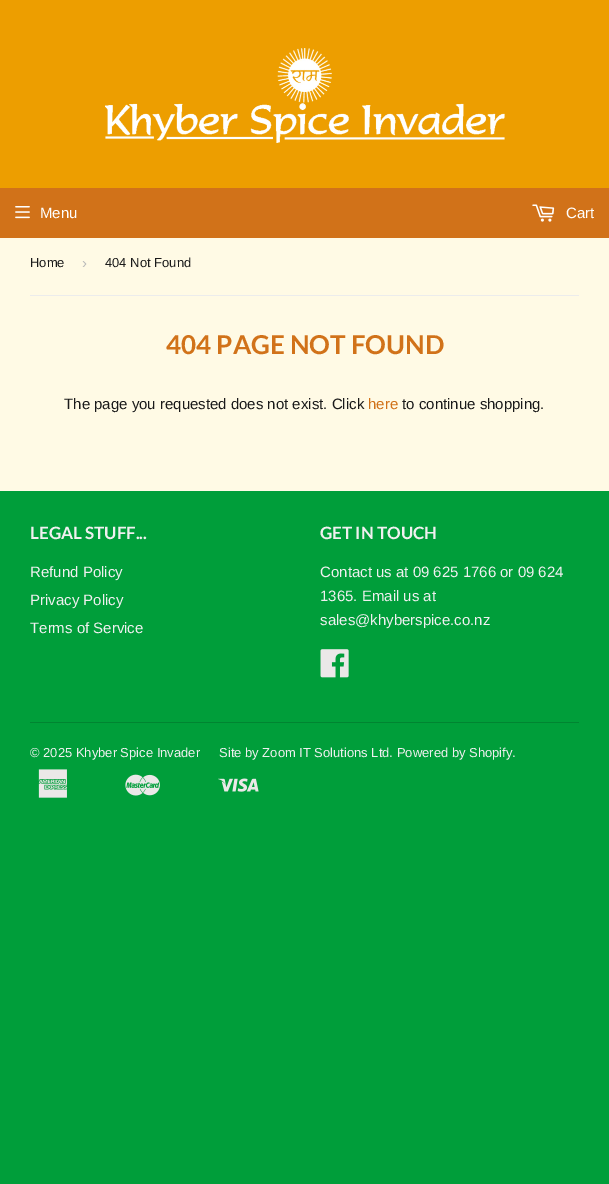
%!PS
<< /PageSize [609 1184] >> setpagedevice
/rgb { dup -16 bitshift 255 div exch dup -8 bitshift 255 and 255 div exch 255 and 255 div setrgbcolor } def
/font { [ exch dup neg 0 0 3 -1 roll 0 0 ] selectfont } def
/text { moveto show } def
/picture { 5 dict begin { /h /w /y /x /name } { exch def } forall
  gsave x y translate w h scale
  w h 8 [w 0 0 h 0 0] name (r) file false 3 colorimage grestore end } def
0 1184 translate 1 -1 scale
4 setmiterlimit
/s1 { /LiberationSans-Regular 15 font 16#FFFFFF rgb } def
/s2 { /LiberationSans-Regular 13 font 16#1A1A1A rgb } def
/s3 { /LiberationSans-Regular 15 font 16#BBBBBB rgb } def
/s4 { /Lato-Bold 26 font 16#D17219 rgb } def
/s5 { /LiberationSans-Regular 15 font 16#1A1A1A rgb } def
/s6 { /LiberationSans-Regular 15 font 16#D17219 rgb } def
/s7 { /Lato-Bold 17 font 16#F0F0F0 rgb } def
/s8 { /LiberationSans-Regular 15 font 16#F0F0F0 rgb } def
/s9 { /LiberationSans-Regular 13 font 16#F0F0F0 rgb } def
16#009E3A rgb
0 0 609 1184 rectfill
16#FFFAE5 rgb
0 238 609 253 rectfill
16#ED9E00 rgb
0 0 609 188 rectfill
(pic1.raw) 105 48 400 95 picture
16#D17219 rgb
0 188 609 50 rectfill
(pic2.raw) 15 206 15 13 picture
s1
(Menu) 40 218 text
(pic3.raw) 532 204 23 18 picture
(Cart) 566 218 text
16#ECECEC rgb
30 295 549 1 rectfill
s2
(Home) 30 267 text
s3
(›) 82 268 text
s2
(404 Not Found) 105 267 text
s4
(404 PAGE NOT FOUND) 166 354 text
s5
(The page you requested does not exist. Click) 64 409 text
s6
(here) 368 409 text
s5
(to continue shopping.) 402 409 text
s7
(LEGAL STUFF...) 30 539 text
s8
(Refund Policy) 30 577 text
(Privacy Policy) 30 605 text
(Terms of Service) 30 633 text
s7
(GET IN TOUCH) 320 539 text
s8
(Contact us at 09 625 1766 or 09 624) 320 577 text
(1365. Email us at) 320 601 text
(sales@khyberspice.co.nz) 320 625 text
(pic4.raw) 320 649 29 29 picture
16#008531 rgb
30 722 549 1 rectfill
s9
(© 2025 Khyber Spice Invader) 30 757 text
(Site by Zoom IT Solutions Ltd. Powered by Shopify.) 219 757 text
(pic5.raw) 38 769 30 29 picture
(pic6.raw) 125 774 35 22 picture
(pic7.raw) 218 778 41 14 picture
showpage
